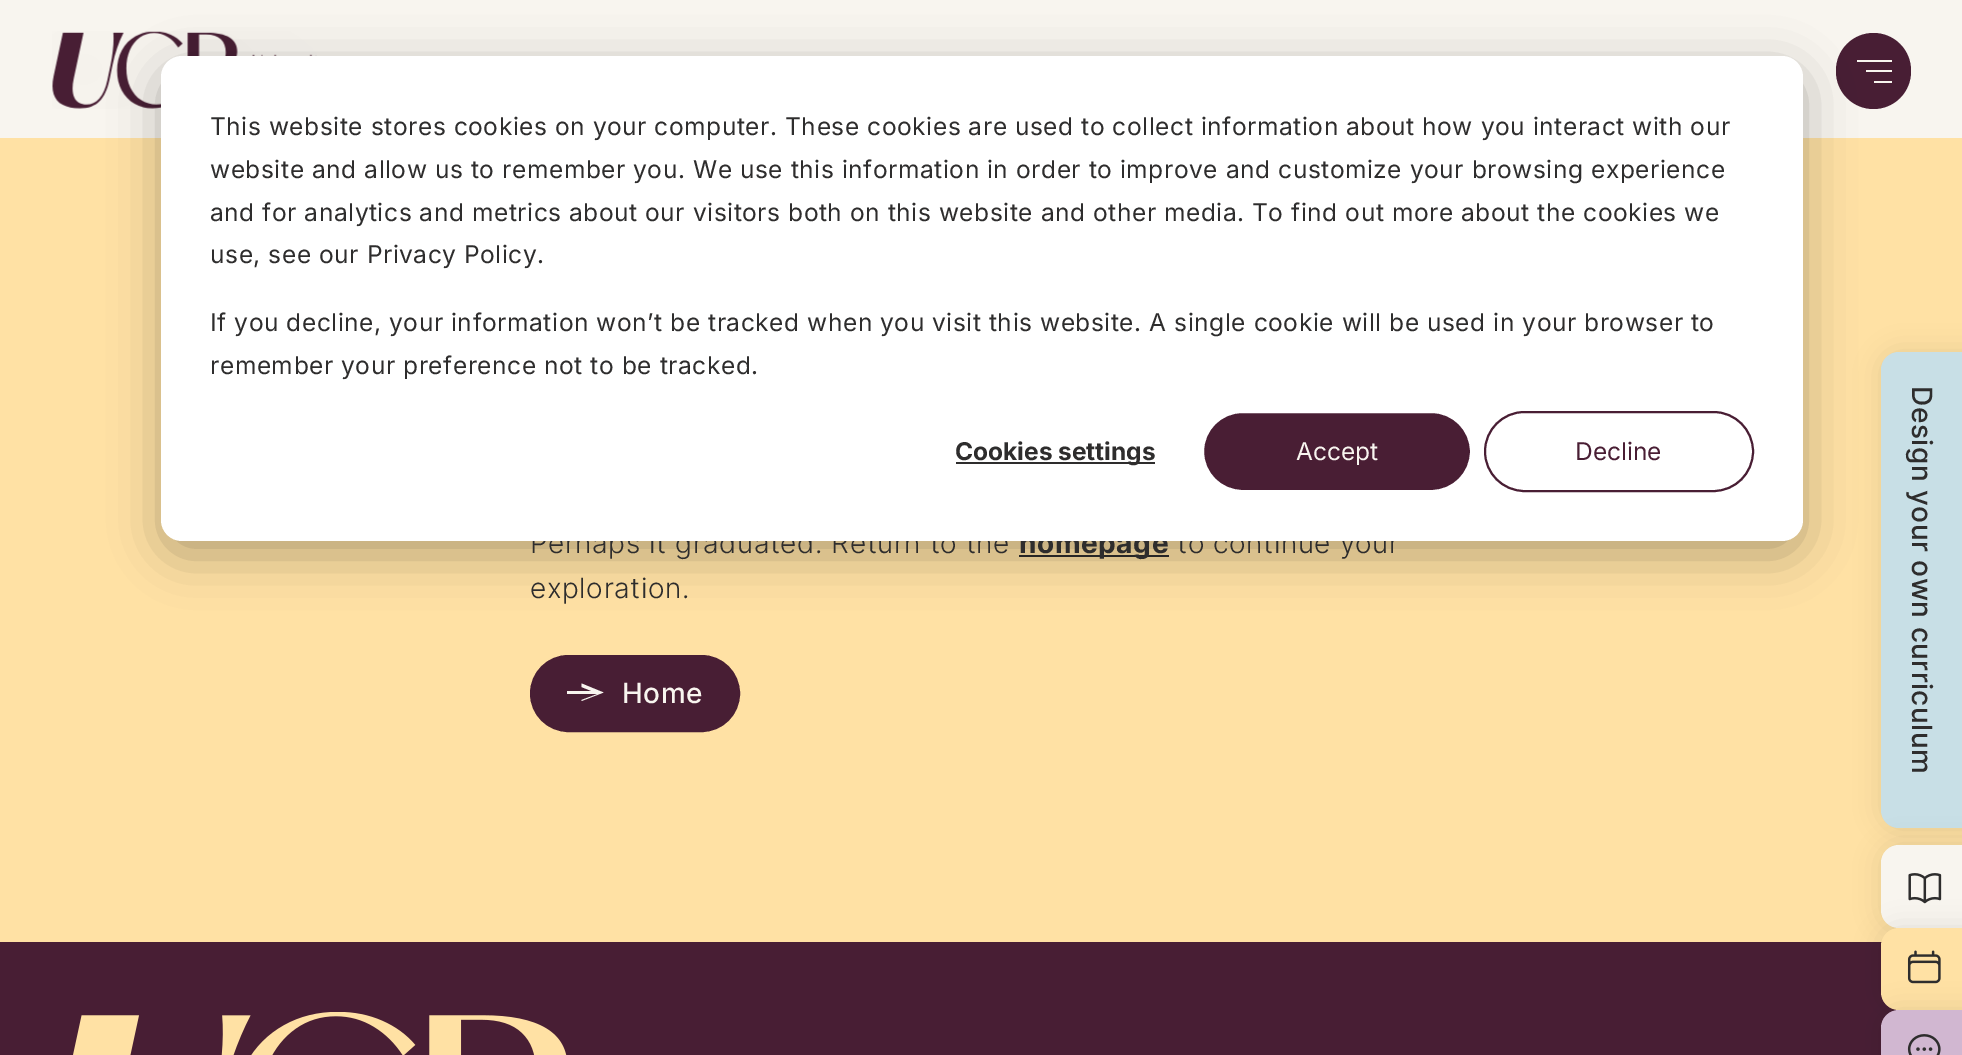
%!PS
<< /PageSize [1962 1055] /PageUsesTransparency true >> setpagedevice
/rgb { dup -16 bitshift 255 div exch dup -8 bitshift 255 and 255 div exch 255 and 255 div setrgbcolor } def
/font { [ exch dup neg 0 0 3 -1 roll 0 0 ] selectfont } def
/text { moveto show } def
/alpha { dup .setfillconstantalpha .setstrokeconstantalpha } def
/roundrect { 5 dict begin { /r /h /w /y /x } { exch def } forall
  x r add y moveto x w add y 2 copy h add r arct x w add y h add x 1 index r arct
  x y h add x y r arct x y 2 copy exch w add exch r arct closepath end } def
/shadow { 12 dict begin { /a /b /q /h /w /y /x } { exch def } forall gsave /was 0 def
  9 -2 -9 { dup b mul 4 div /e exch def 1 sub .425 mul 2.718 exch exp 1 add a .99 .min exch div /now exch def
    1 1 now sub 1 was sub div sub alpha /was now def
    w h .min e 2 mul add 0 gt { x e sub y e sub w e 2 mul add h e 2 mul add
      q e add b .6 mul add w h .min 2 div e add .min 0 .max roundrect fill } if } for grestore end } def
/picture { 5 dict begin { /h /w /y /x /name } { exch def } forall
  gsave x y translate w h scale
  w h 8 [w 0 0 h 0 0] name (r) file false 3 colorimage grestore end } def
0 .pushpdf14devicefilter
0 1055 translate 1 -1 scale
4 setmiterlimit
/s1 { /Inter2-Bold 24.5 font 16#2E2D2D rgb } def
/s2 { /Inter-Regular 24.5 font 16#F8F5EF rgb } def
/s3 { /Inter-Regular 24.5 font 16#491E34 rgb } def
16#FFE1A4 rgb
0 0 1962 1055 rectfill
16#F8F5EF rgb
0 0 1962 138 rectfill
(pic1.raw) 52 31 265 78 picture
16#481E34 rgb
1836 33 75 76 37.5 roundrect fill
16#F8F5EF rgb
1857 60 35 2 rectfill
1866 70 26 2 rectfill
1874 81 18 2 rectfill
16#2E2D2D rgb
1019 555 150 2 rectfill
16#000000 rgb
161 70 1642 485 21 24.5 0.28 shadow
/Inter-Light 28 font
16#2E2D2D rgb
530 553 moveto 0.56 0 (Perhaps it graduated. Return to the) ashow
/Inter-Bold 28 font
1019 553 moveto 0.56 0 (homepage) ashow
/Inter-Light 28 font
1177 553 moveto 0.56 0 (to continue your) ashow
16#FFFFFF rgb
161 56 1642 485 21 roundrect fill
/Inter-Regular 24.5 font
16#2E2D2D rgb
210 135 moveto 0.56 0 (This website stores cookies on your computer. These cookies are used to collect information about how you interact with our) ashow
210 178 moveto 0.56 0 (website and allow us to remember you. We use this information in order to improve and customize your browsing experience) ashow
210 221 moveto 0.56 0 (and for analytics and metrics about our visitors both on this website and other media. To find out more about the cookies we) ashow
210 263 moveto 0.56 0 (use, see our Privacy Policy.) ashow
210 331 moveto 0.56 0 (If you decline, your information won’t be tracked when you visit this website. A single cookie will be used in your browser to) ashow
210 374 moveto 0.56 0 (remember your preference not to be tracked.) ashow
956 462 199 2 rectfill
s1
(Cookies settings) 955 460 text
16#491E34 rgb
1203 412 268 79 39.5 roundrect gsave fill grestore
16#FFFFFF rgb
2 setlinewidth
stroke
s2
(Accept) 1296 460 text
16#491E34 rgb
1485 412 268 79 39.5 roundrect stroke
(Decline) 1575 460 text
/Inter-Light 28 font
16#2E2D2D rgb
530 598 moveto 0.56 0 (exploration.) ashow
16#481E34 rgb
531 656 208 75 37.5 roundrect gsave fill grestore
stroke
16#F8F5EF rgb
581.5 701 moveto 581.5 700 lineto 597.5 694 lineto 567 694 lineto 567 691 lineto 591.5 691 lineto 581.5 687 lineto 581.5 683.5 lineto 603.5 692.5 lineto closepath fill
/Inter-Medium 28 font
622 703 moveto 0.56 0 (Home) ashow
16#481E34 rgb
0 942 1899 113 rectfill
(pic2.raw) 73 1012 494 43 picture
16#000000 rgb
1881 352 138 476 18 13 0.1 shadow
16#C8DFE6 rgb
1899 352 moveto 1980 352 lineto 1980 828 lineto 1899 828 lineto 1889 828 1881 820 1881 810 curveto 1881 370 lineto 1881 360 1889 352 1899 352 curveto closepath fill
16#2E2D2D rgb
gsave 1912 386 translate 90 rotate 0 0 moveto 0.56 0 (Design your own curriculum) ashow grestore
16#000000 rgb
1881 845 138 83 18 13 0.1 shadow
16#F8F5EF rgb
1899 845 moveto 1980 845 lineto 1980 928 lineto 1899 928 lineto 1889 928 1881 920 1881 910 curveto 1881 863 lineto 1881 853 1889 845 1899 845 curveto closepath fill
(pic3.raw) 1908 873 34 31 picture
16#000000 rgb
1881 928 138 82 18 13 0.1 shadow
16#FFE1A4 rgb
1899 928 moveto 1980 928 lineto 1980 1010 lineto 1899 1010 lineto 1889 1010 1881 1002 1881 992 curveto 1881 946 lineto 1881 936 1889 928 1899 928 curveto closepath fill
(pic4.raw) 1907 950 34 34 picture
16#000000 rgb
1881 1010 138 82 18 13 0.1 shadow
16#D1B7D1 rgb
1899 1010 moveto 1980 1010 lineto 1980 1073 lineto 1899 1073 lineto 1889 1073 1881 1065 1881 1055 curveto 1881 1028 lineto 1881 1018 1889 1010 1899 1010 curveto closepath fill
(pic5.raw) 1907 1034 34 21 picture
.poppdf14devicefilter showpage
